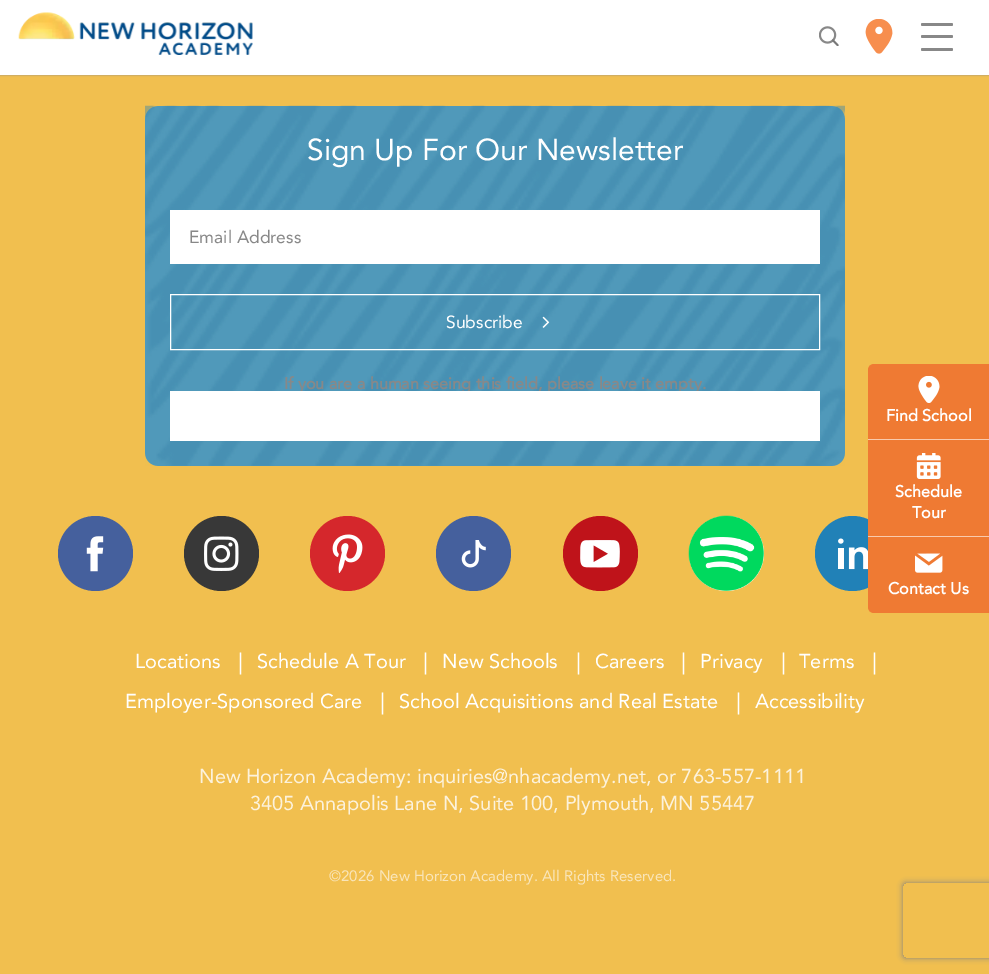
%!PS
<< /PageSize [989 974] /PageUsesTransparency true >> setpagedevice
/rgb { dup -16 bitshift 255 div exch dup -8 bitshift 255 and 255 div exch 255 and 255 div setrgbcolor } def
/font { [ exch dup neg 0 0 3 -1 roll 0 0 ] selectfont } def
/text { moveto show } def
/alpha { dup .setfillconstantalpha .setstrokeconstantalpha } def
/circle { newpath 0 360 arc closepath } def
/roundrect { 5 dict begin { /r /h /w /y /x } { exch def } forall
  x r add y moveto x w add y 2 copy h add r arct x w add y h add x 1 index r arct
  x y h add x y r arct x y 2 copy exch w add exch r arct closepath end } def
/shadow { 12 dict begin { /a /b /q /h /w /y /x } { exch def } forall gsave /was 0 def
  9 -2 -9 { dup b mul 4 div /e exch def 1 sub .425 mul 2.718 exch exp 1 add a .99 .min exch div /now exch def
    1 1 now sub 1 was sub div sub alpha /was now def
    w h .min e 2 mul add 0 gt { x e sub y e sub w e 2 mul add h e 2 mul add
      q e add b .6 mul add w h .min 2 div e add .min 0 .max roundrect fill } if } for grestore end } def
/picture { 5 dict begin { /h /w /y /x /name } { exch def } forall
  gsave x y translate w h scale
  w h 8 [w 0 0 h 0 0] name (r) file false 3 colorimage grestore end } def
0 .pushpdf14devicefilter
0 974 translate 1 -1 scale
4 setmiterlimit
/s1 { /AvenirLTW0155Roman-Regular 30 font 16#FFFFFF rgb } def
/s2 { /AvenirLTW0155Roman-Regular 17.5 font 16#888888 rgb } def
/s3 { /AvenirLTW0155Roman-Regular 17.5 font 16#FFFFFF rgb } def
/s4 { /AvenirLTW0155Roman-Bold 16.25 font 16#888888 rgb } def
/s5 { /AvenirLTW0155Roman-Regular 20 font 16#FFFFFF rgb } def
/s6 { /AvenirLTW0155Roman-Regular 22 font 16#FFFFFF rgb } def
/s7 { /AvenirLTW0155Roman-Regular 20 font 16#FCF2DC rgb } def
/s8 { /AvenirLTW0155Roman-Regular 15 font 16#F9E5B9 rgb } def
/s9 { /AvenirLTW0155Roman-Bold 16.25 font 16#FFFFFF rgb } def
16#F1BF4F rgb
0 0 989 974 rectfill
16#888888 rgb
0 0 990 75 0 1 1 shadow
16#FFFFFF rgb
0 0 989 75 rectfill
(pic1.raw) 18 12 235 43 picture
(pic2.raw) 819 26 20 20 picture
(pic3.raw) 865 19 28 35 picture
16#888888 rgb
921 35 32 3 1.5 roundrect fill
921 23 32 3 1.5 roundrect fill
921 48 32 3 1.5 roundrect fill
16#5199BA rgb
145 106 700 360 13 roundrect fill
(pic4.raw) 145 105 700 361 picture
s1
(Sign Up For Our Newsletter) 307 160 text
170 210 650 54 rectfill
s2
(Email Address) 189 243 text
(pic5.raw) 542 316 8 12 picture
16#FFFFFF rgb
170.5 294.5 649 55 rectstroke
(Subscribe) 446 328 text
s4
(If you are a human seeing this field, please leave it empty.) 284 389 text
16#FFFFFF rgb
170 391 650 50 rectfill
16#45609D rgb
95.5 553.5 37.5 circle fill
(pic6.raw) 86 536 18 36 picture
16#383838 rgb
221.5 553.5 37.5 circle fill
(pic7.raw) 204 536 35 35 picture
16#D5272C rgb
347.5 553.5 37.5 circle fill
(pic8.raw) 332 534 31 39 picture
16#45609D rgb
473.5 553.5 37.5 circle fill
(pic9.raw) 461 540 25 28 picture
16#BF131A rgb
600.5 553.5 37.5 circle fill
(pic10.raw) 580 540 40 28 picture
16#FFFFFF rgb
726.5 553.5 37.5 circle fill
(pic11.raw) 688 515 76 76 picture
16#2181B7 rgb
852.5 553.5 37.5 circle fill
(pic12.raw) 838 538 30 32 picture
s5
(Locations) 135 668 text
s6
(|) 238 669 text
s5
(Schedule A Tour) 257 668 text
s6
(|) 423 669 text
s5
(New Schools) 442 668 text
s6
(|) 576 669 text
s5
(Careers) 595 668 text
s6
(|) 681 669 text
s5
(Privacy) 700 668 text
s6
(|) 781 669 text
s5
(Terms) 799 668 text
s6
(|) 872 669 text
s5
(Employer-Sponsored Care) 125 708 text
s6
(|) 380 709 text
s5
(School Acquisitions and Real Estate) 399 708 text
s6
(|) 736 709 text
s5
(Accessibility) 755 708 text
s7
(New Horizon Academy: inquiries@nhacademy.net, or 763-557-1111) 199 783 text
(3405 Annapolis Lane N, Suite 100, Plymouth, MN 55447) 250 810 text
s8
(©2026 New Horizon Academy. All Rights Reserved.) 329 881 text
16#EF7A33 rgb
874 364 moveto 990 364 lineto 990 613 lineto 874 613 lineto 870.5 613 868 610.5 868 607 curveto 868 370 lineto 868 366.5 870.5 364 874 364 curveto closepath fill
(pic13.raw) 918 376 22 27 picture
s9
(Find School) 886 421 text
16#F9CAAD rgb
868 439 121 1 rectfill
(pic14.raw) 916 453 25 26 picture
s9
(Schedule) 895 497 text
(Tour) 912 518 text
16#F9CAAD rgb
868 536 121 1 rectfill
(pic15.raw) 915 553 28 20 picture
s9
(Contact Us) 888 594 text
gsave
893 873 moveto 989 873 lineto 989 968 lineto 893 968 lineto closepath 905.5 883 moveto 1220.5 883 lineto 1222 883 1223 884 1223 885.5 curveto 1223 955.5 lineto 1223 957 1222 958 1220.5 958 curveto 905.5 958 lineto 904 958 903 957 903 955.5 curveto 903 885.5 lineto 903 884 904 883 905.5 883 curveto closepath eoclip newpath
16#808080 rgb
903 883 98 75 2.5 3 1 shadow
grestore
.poppdf14devicefilter showpage
